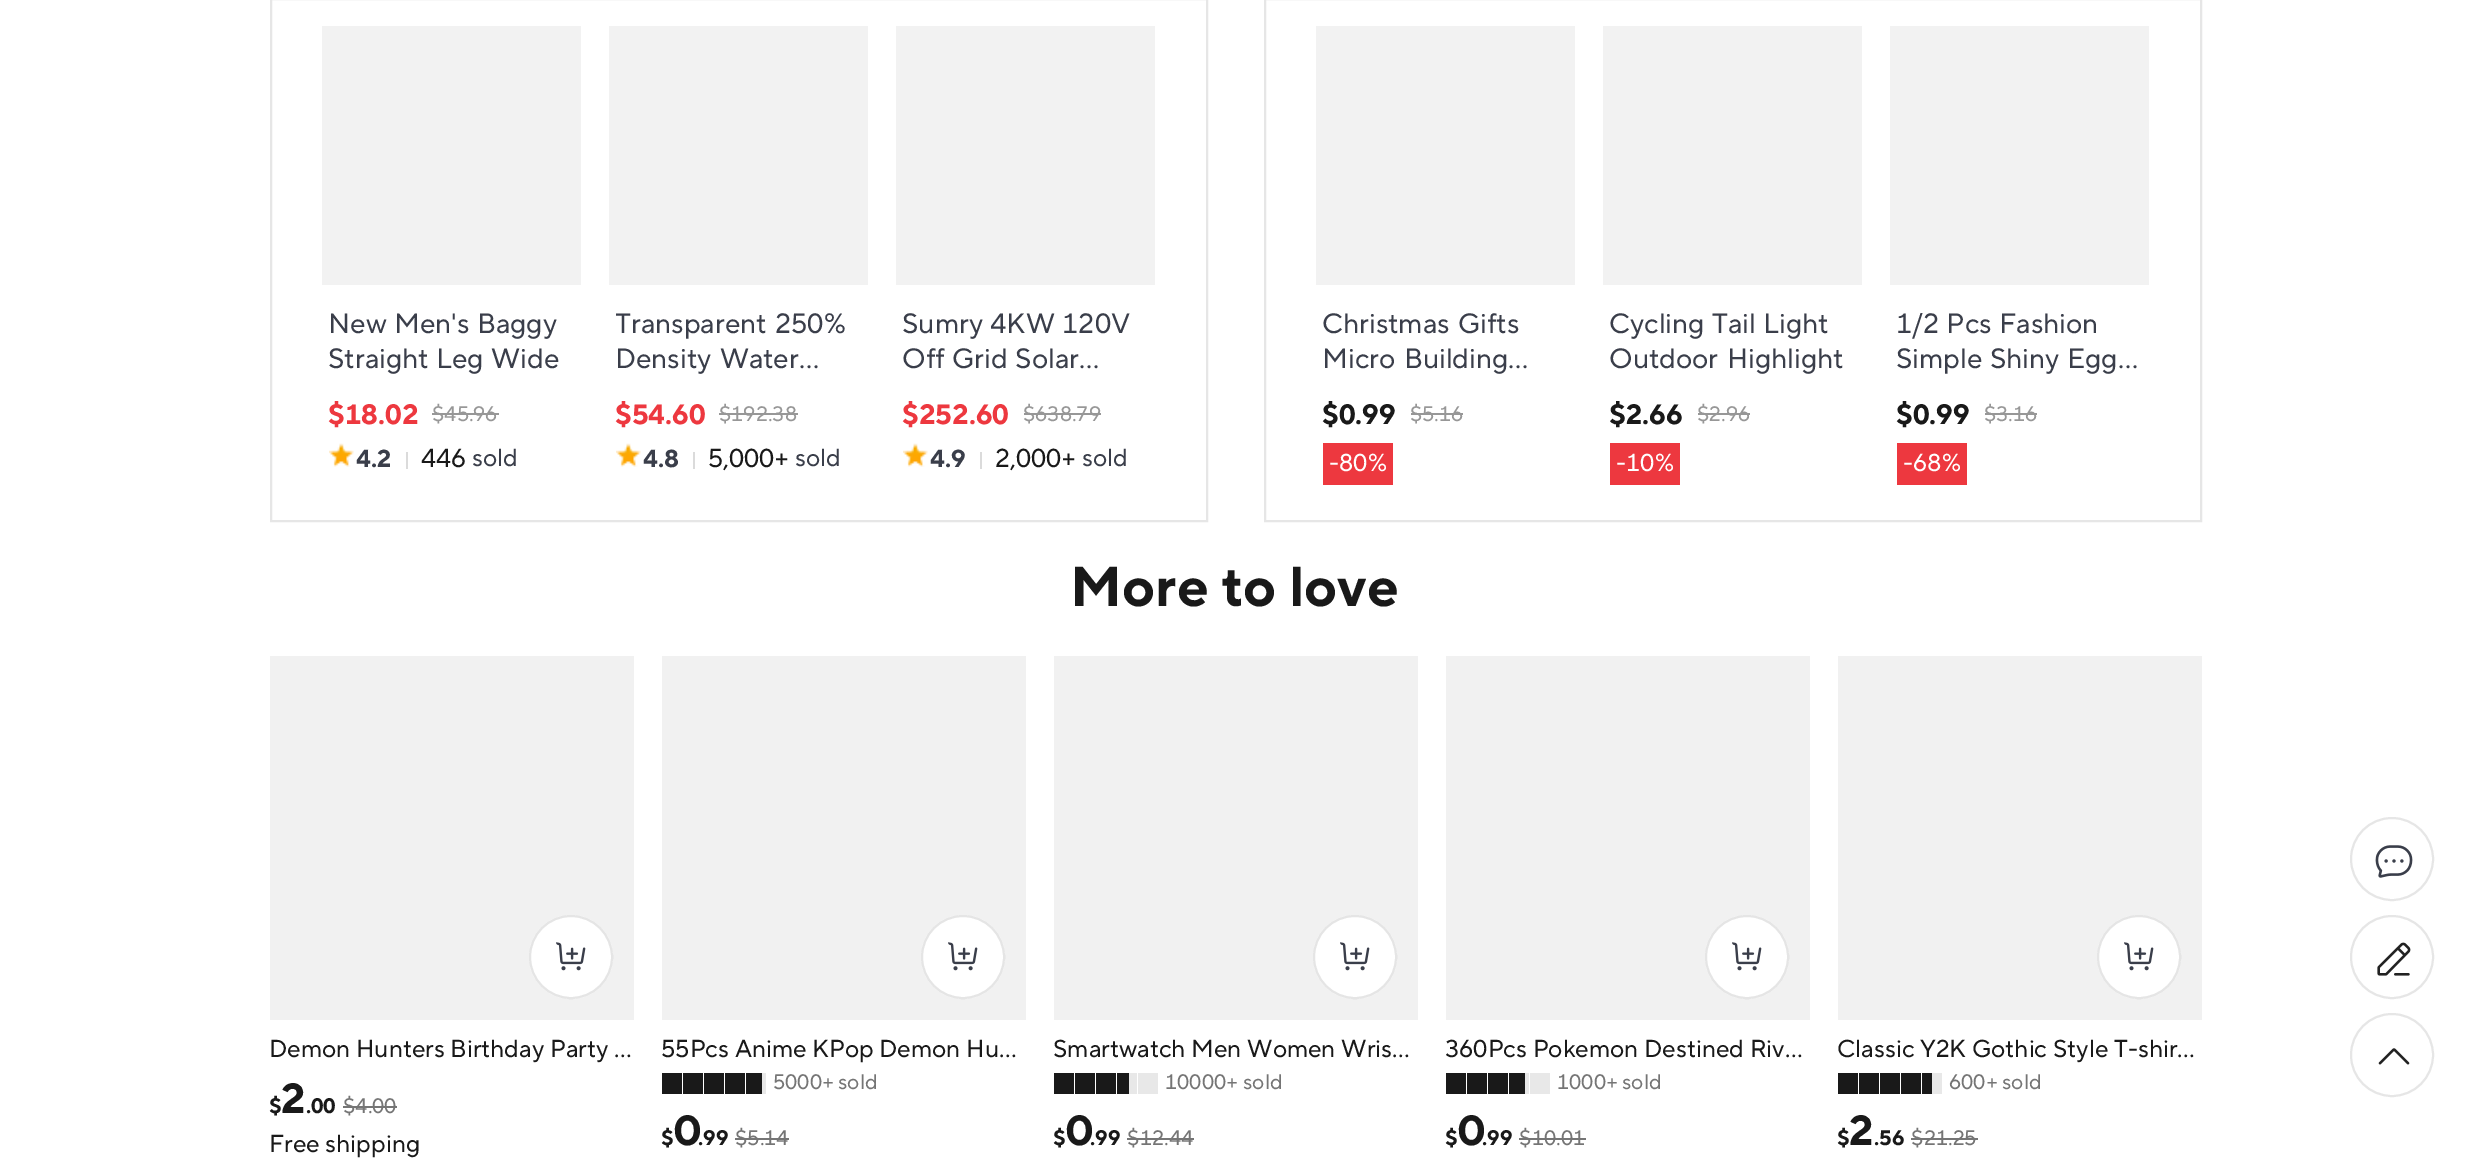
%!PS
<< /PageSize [2468 1169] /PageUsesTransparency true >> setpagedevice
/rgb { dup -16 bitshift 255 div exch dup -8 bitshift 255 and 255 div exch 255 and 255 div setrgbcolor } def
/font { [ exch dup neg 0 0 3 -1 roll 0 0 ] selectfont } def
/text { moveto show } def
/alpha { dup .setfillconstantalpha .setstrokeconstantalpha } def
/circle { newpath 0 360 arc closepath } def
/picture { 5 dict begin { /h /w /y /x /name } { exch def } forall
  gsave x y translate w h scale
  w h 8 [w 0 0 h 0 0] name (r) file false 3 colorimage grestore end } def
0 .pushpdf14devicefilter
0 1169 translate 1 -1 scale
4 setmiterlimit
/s1 { /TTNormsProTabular-Bold 28 font 16#ED383F rgb } def
/s2 { /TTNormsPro-Regular 21 font 16#979797 rgb } def
/s3 { /TTNormsPro-Bold 24.5 font 16#3A3E4A rgb } def
/s4 { /TTNormsPro-Regular 26 font 16#191919 rgb } def
/s5 { /TTNormsPro-Regular 24.5 font 16#3A3E4A rgb } def
/s6 { /TTNormsProTabular-Regular 21 font 16#979797 rgb } def
/s7 { /TTNormsProTabular-Regular 26 font 16#191919 rgb } def
/s8 { /TTNormsProTabular-Bold 28 font 16#191919 rgb } def
/s9 { /TTNormsPro-Regular 24.5 font 16#FFFFFF rgb } def
/s10 { /TTNormsProTabular-Regular 24.5 font 16#FFFFFF rgb } def
/s11 { /TTNormsPro-Bold 28 font 16#191919 rgb } def
/s12 { /TTNormsPro-Bold 56 font 16#191919 rgb } def
/s13 { /TTNormsPro-Regular 24.5 font 16#191919 rgb } def
/s14 { /TTNormsPro-Bold 21 font 16#191919 rgb } def
/s15 { /TTNormsPro-Bold 42 font 16#191919 rgb } def
/s16 { /TTNormsProTabular-Bold 21 font 16#191919 rgb } def
/s17 { /TTNormsPro-Regular 21 font 16#757575 rgb } def
/s18 { /TTNormsProTabular-Regular 21 font 16#757575 rgb } def
/s19 { /TTNormsProTabular-Regular 24.5 font 16#191919 rgb } def
16#FFFFFF rgb
0 0 2468 1169 rectfill
16#E6E6E6 rgb
2 setlinewidth
271 -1 936 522 rectstroke
16#F2F2F2 rgb
322 26 259 259 rectfill
/TTNormsPro-Regular 28 font
16#3A3E4A rgb
328 333 moveto 1 0 32 (New Men's Baggy) widthshow
328 368 moveto 1 0 32 (Straight Leg Wide) widthshow
s1
($18.02) 328 424 text
s2
($45.96) 432 421 text
432 413 67 2 rectfill
(pic1.raw) 329 443 25 24 picture
s3
(4.2) 356 467 text
16#DBDBDB rgb
406 452 2 17 rectfill
s4
(446) 421 467 text
s5
(sold) 472 466 text
16#F2F2F2 rgb
609 26 259 259 rectfill
gsave
616 306 252 70 rectclip
/TTNormsProTabular-Regular 28 font
16#3A3E4A rgb
615 333 moveto 2 0 32 (Transparent 250%) widthshow
grestore
/TTNormsPro-Regular 28 font
16#3A3E4A rgb
615 368 moveto 2 0 32 (Density Water…) widthshow
s1
($54.60) 615 424 text
s6
($192.38) 719 421 text
719 413 79 2 rectfill
(pic1.raw) 616 443 25 24 picture
s3
(4.8) 643 467 text
16#DBDBDB rgb
693 452 2 17 rectfill
s7
(5,000+) 708 467 text
s5
(sold) 795 466 text
16#F2F2F2 rgb
896 26 259 259 rectfill
/TTNormsProTabular-Regular 28 font
16#3A3E4A rgb
902 333 moveto 1 0 32 (Sumry 4KW 120V) widthshow
/TTNormsPro-Regular 28 font
902 368 moveto 1 0 32 (Off Grid Solar…) widthshow
s1
($252.60) 902 424 text
s6
($638.79) 1023 421 text
1024 413 77 2 rectfill
(pic2.raw) 903 443 25 24 picture
s3
(4.9) 930 467 text
16#DBDBDB rgb
980 452 2 17 rectfill
s7
(2,000+) 995 467 text
s5
(sold) 1082 466 text
16#E6E6E6 rgb
1265 -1 936 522 rectstroke
16#F2F2F2 rgb
1316 26 259 259 rectfill
/TTNormsPro-Regular 28 font
16#3A3E4A rgb
1322 333 moveto 2 0 32 (Christmas Gifts) widthshow
1322 368 moveto 2 0 32 (Micro Building…) widthshow
s8
($0.99) 1322 424 text
s6
($5.16) 1410 421 text
1411 413 52 2 rectfill
16#ED383F rgb
1323 443 70 42 rectfill
s9
(-) 1329 471 text
s10
(80) 1339 471 text
s9
(%) 1368 471 text
16#F2F2F2 rgb
1603 26 259 259 rectfill
/TTNormsPro-Regular 28 font
16#3A3E4A rgb
1609 333 moveto 1 0 32 (Cycling Tail Light) widthshow
1609 368 moveto 2 0 32 (Outdoor Highlight) widthshow
s11
($2.66) 1609 424 text
s2
($2.96) 1697 421 text
1698 413 52 2 rectfill
16#ED383F rgb
1610 443 70 42 rectfill
s9
(-) 1616 471 text
s10
(10) 1626 471 text
s9
(%) 1655 471 text
16#F2F2F2 rgb
1890 26 259 259 rectfill
/TTNormsProTabular-Regular 28 font
16#3A3E4A rgb
1896 333 moveto 1 0 32 (1/2 Pcs Fashion) widthshow
/TTNormsPro-Regular 28 font
1896 368 moveto 1 0 32 (Simple Shiny Egg…) widthshow
s8
($0.99) 1896 424 text
s6
($3.16) 1984 421 text
1985 413 52 2 rectfill
16#ED383F rgb
1897 443 70 42 rectfill
s9
(-68%) 1903 471 text
s12
(More to love) 1070 606 text
16#F1F1F1 rgb
270 656 364 364 rectfill
16#FFFFFF rgb
571 957 42 circle fill
0.1 alpha
16#000000 rgb
571 957 41 circle stroke
1 alpha
(pic3.raw) 556 942 30 29 picture
s13
(Demon Hunters Birthday Party …) 269 1057 text
s14
($) 269 1113 text
s15
(2) 281 1113 text
s14
(.) 306 1113 text
s16
(00) 311 1113 text
s17
($4.) 343 1113 text
343 1106 30 2 rectfill
s18
(00) 372 1113 text
373 1106 24 2 rectfill
s13
(Free shipping) 269 1152 text
16#F1F1F1 rgb
662 656 364 364 rectfill
16#FFFFFF rgb
963 957 42 circle fill
0.1 alpha
16#000000 rgb
963 957 41 circle stroke
1 alpha
(pic3.raw) 948 942 30 29 picture
s13
(55Pcs Anime KPop Demon Hu…) 661 1057 text
662 1073 20 21 rectfill
683 1073 20 21 rectfill
704 1073 20 21 rectfill
725 1073 20 21 rectfill
746 1073 16 21 rectfill
16#E8E8E8 rgb
762 1073 4 21 rectfill
s18
(5000+) 773 1089 text
s17
(sold) 838 1089 text
s14
($) 661 1145 text
s15
(0) 673 1145 text
s14
(.99) 698 1145 text
s17
($5.) 735 1145 text
735 1138 30 2 rectfill
s18
(14) 764 1145 text
765 1138 24 2 rectfill
16#F1F1F1 rgb
1054 656 364 364 rectfill
16#FFFFFF rgb
1355 957 42 circle fill
0.1 alpha
16#000000 rgb
1355 957 41 circle stroke
1 alpha
(pic3.raw) 1340 942 30 29 picture
s13
(Smartwatch Men Women Wris…) 1053 1057 text
1054 1073 20 21 rectfill
1075 1073 20 21 rectfill
1096 1073 20 21 rectfill
1117 1073 12 21 rectfill
16#E8E8E8 rgb
1129 1073 8 21 rectfill
1138 1073 20 21 rectfill
s18
(10000+) 1165 1089 text
s17
(sold) 1243 1089 text
s14
($) 1053 1145 text
s15
(0) 1065 1145 text
s14
(.99) 1090 1145 text
s17
($) 1127 1145 text
1127 1138 12 2 rectfill
s18
(12) 1140 1145 text
1139 1138 30 2 rectfill
s17
(.44) 1164 1145 text
1169 1138 25 2 rectfill
16#F1F1F1 rgb
1446 656 364 364 rectfill
16#FFFFFF rgb
1747 957 42 circle fill
0.1 alpha
16#000000 rgb
1747 957 41 circle stroke
1 alpha
(pic3.raw) 1732 942 30 29 picture
s19
(360Pcs Pokemon Destined Riv…) 1445 1057 text
1446 1073 20 21 rectfill
1467 1073 20 21 rectfill
1488 1073 20 21 rectfill
1509 1073 16 21 rectfill
16#E8E8E8 rgb
1525 1073 4 21 rectfill
1530 1073 20 21 rectfill
s18
(1000+) 1557 1089 text
s17
(sold) 1622 1089 text
s14
($) 1445 1145 text
s15
(0) 1457 1145 text
s14
(.99) 1482 1145 text
s17
($) 1519 1145 text
1519 1138 12 2 rectfill
s18
(10 01) 1532 1145 text
1531 1138 55 2 rectfill
s17
(.) 1556 1145 text
16#F1F1F1 rgb
1838 656 364 364 rectfill
16#FFFFFF rgb
2139 957 42 circle fill
0.1 alpha
16#000000 rgb
2139 957 41 circle stroke
1 alpha
(pic3.raw) 2124 942 30 29 picture
s13
(Classic Y2K Gothic Style T-shir…) 1837 1057 text
1838 1073 20 21 rectfill
1859 1073 20 21 rectfill
1880 1073 20 21 rectfill
1901 1073 20 21 rectfill
1922 1073 10 21 rectfill
16#E8E8E8 rgb
1932 1073 10 21 rectfill
s18
(600+) 1949 1089 text
s17
(sold) 2002 1089 text
s14
($) 1837 1145 text
s15
(2) 1849 1145 text
s14
(.56) 1874 1145 text
s17
($) 1911 1145 text
1911 1138 12 2 rectfill
s18
(21) 1924 1145 text
1923 1138 30 2 rectfill
s17
(.25) 1948 1145 text
1953 1138 25 2 rectfill
16#E6E6E6 rgb
2392 859 41 circle stroke
(pic4.raw) 2375 845 38 33 picture
2392 957 41 circle stroke
(pic5.raw) 2377 942 34 34 picture
2392 1055 41 circle stroke
(pic6.raw) 2378 1048 32 17 picture
.poppdf14devicefilter showpage
